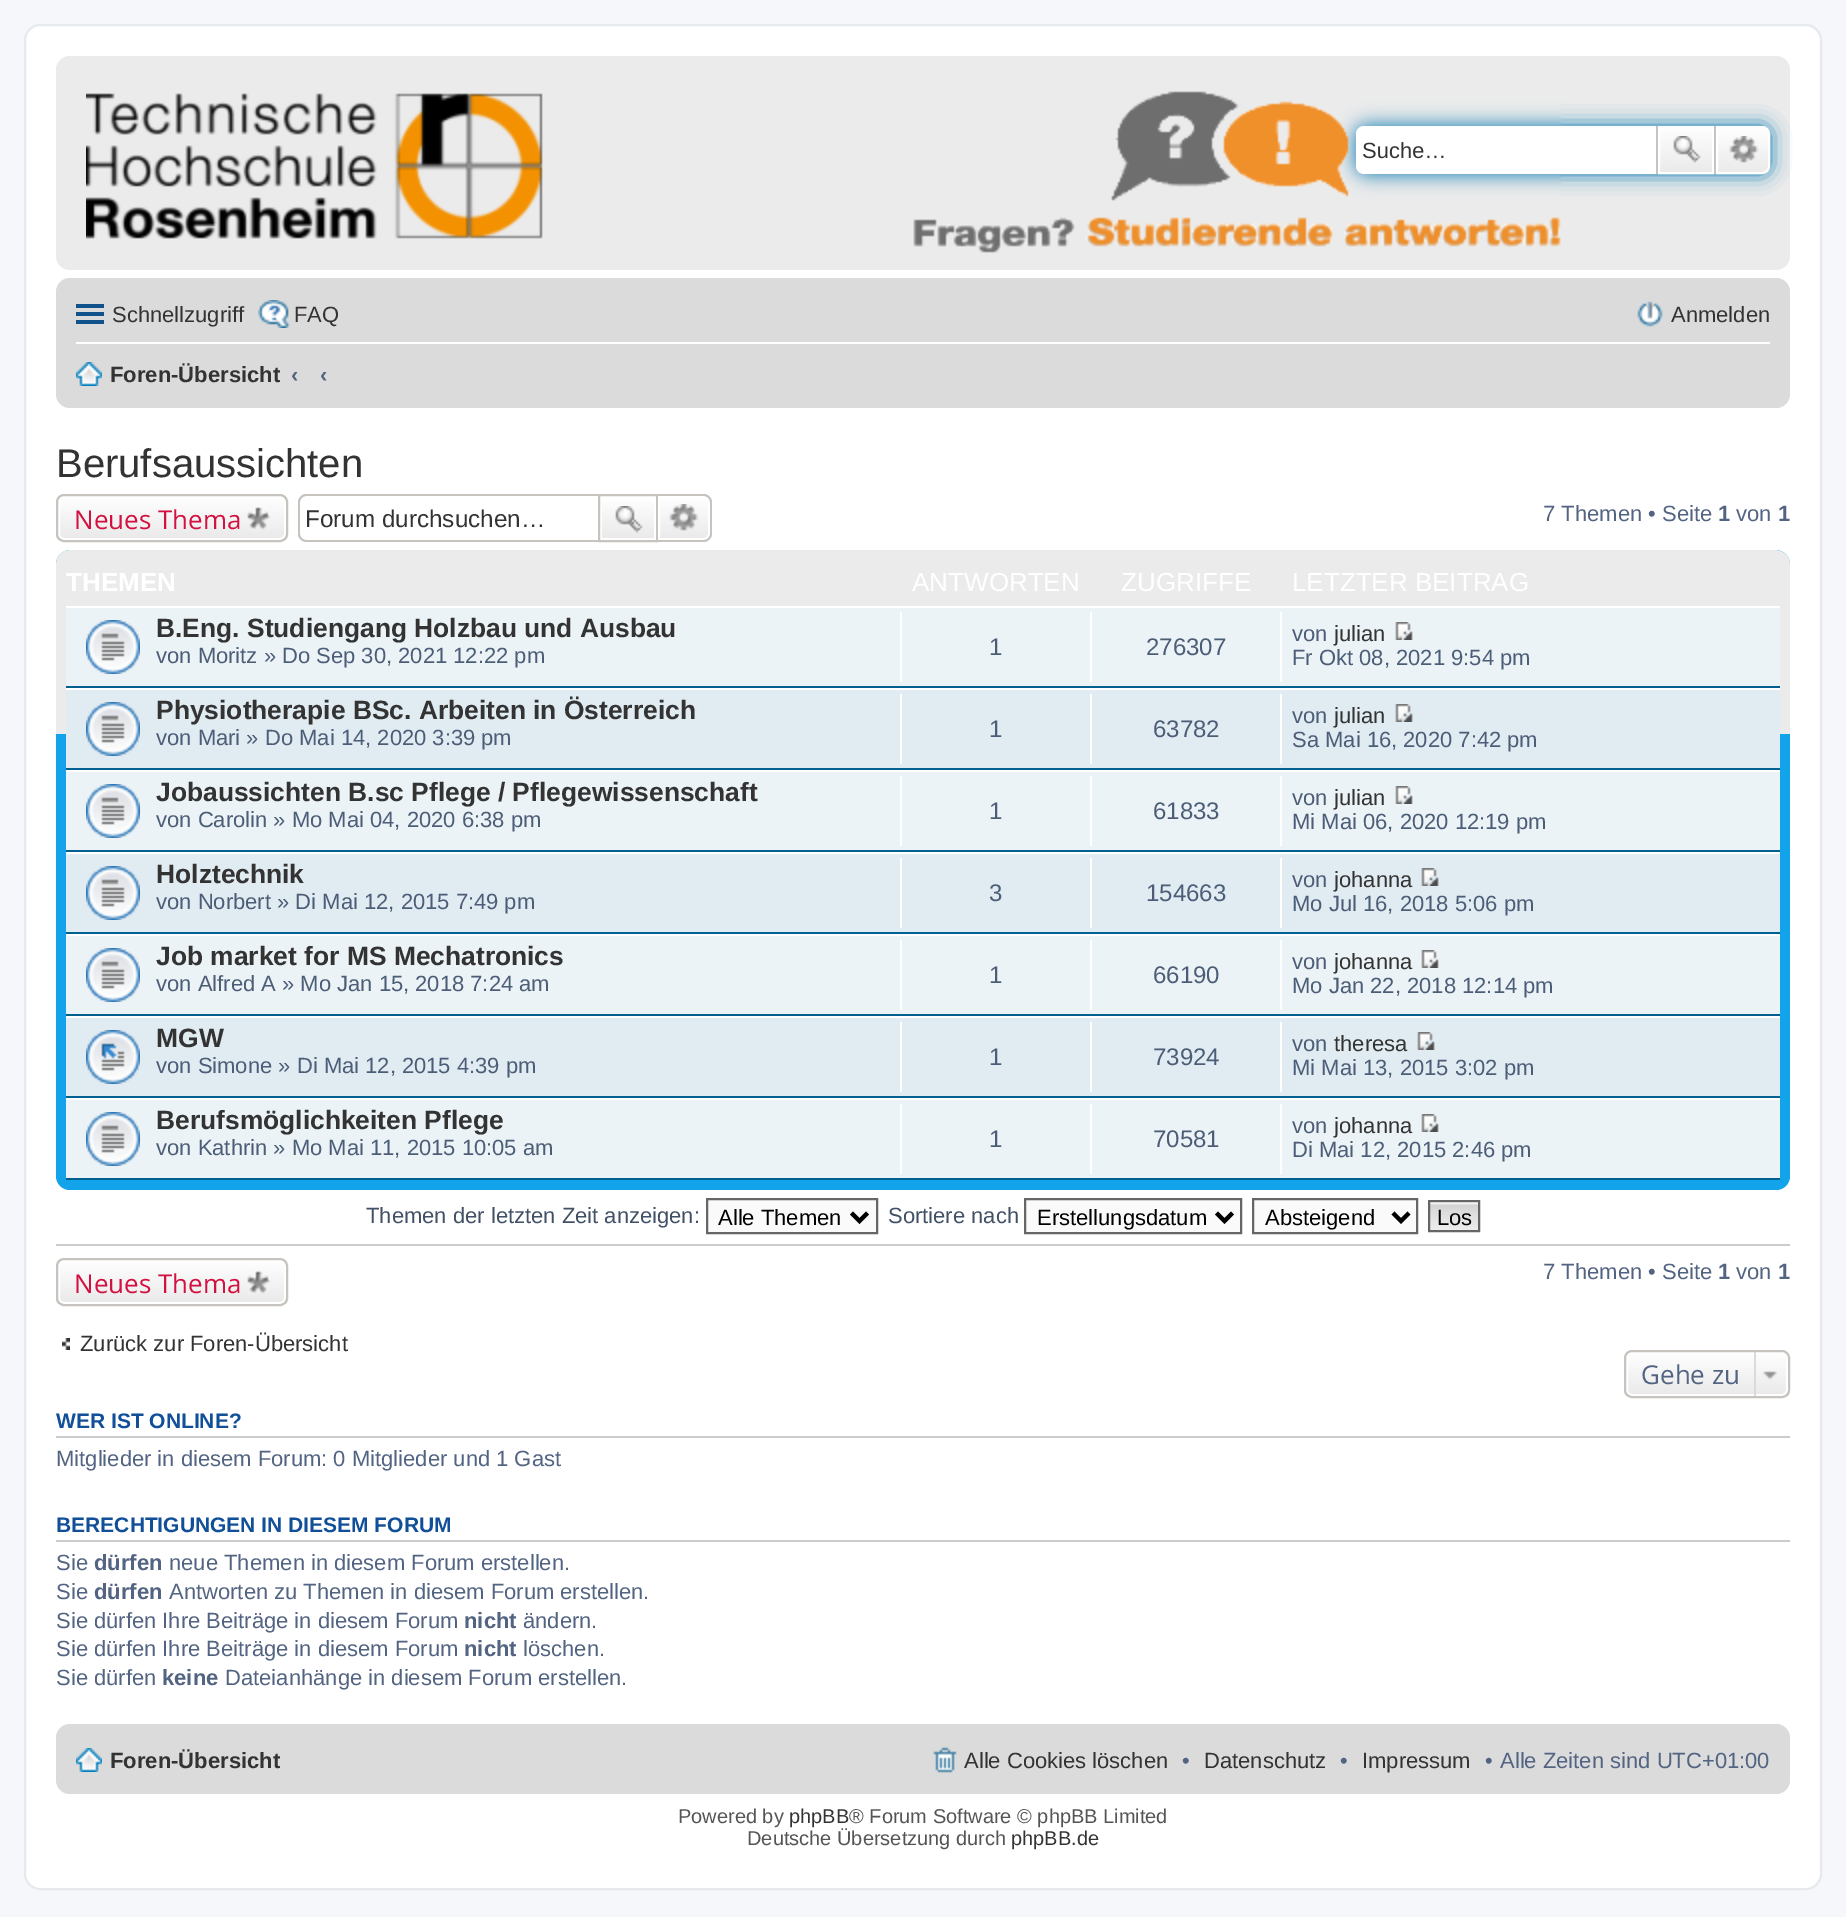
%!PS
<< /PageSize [1846 1917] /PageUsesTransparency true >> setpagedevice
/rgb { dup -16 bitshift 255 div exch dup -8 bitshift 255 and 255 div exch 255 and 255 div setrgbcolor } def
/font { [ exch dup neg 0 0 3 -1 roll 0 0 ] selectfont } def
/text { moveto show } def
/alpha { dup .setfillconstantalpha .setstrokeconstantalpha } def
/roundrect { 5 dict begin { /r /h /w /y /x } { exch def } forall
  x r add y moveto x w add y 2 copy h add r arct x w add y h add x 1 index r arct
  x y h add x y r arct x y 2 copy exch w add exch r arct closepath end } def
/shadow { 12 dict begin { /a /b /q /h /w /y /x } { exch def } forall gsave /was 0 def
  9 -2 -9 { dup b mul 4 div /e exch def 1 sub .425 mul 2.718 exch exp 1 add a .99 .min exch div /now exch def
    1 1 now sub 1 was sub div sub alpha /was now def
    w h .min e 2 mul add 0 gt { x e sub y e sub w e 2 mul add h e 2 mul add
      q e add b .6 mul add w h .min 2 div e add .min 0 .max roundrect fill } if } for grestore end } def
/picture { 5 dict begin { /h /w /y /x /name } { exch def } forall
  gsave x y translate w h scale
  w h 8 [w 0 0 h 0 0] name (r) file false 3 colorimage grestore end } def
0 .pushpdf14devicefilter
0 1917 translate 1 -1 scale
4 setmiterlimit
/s1 { /LiberationSans-Regular 22 font 16#333333 rgb } def
/s2 { /LiberationSans-Bold 22 font 16#333333 rgb } def
/s3 { /LiberationSans-Bold 22 font 16#536482 rgb } def
/s4 { /LiberationSans-Regular 40 font 16#333333 rgb } def
/s5 { /OpenSans-Regular 26 font 16#D31141 rgb } def
/s6 { /LiberationSans-Regular 24.25 font 16#333333 rgb } def
/s7 { /LiberationSans-Regular 22 font 16#536482 rgb } def
/s8 { /LiberationSans-Bold 26 font 16#FFFFFF rgb } def
/s9 { /LiberationSans-Regular 26 font 16#FFFFFF rgb } def
/s10 { /LiberationSans-Bold 26.4 font 16#333333 rgb } def
/s11 { /LiberationSans-Regular 22 font 16#4C5D77 rgb } def
/s12 { /LiberationSans-Regular 24 font 16#4C5D77 rgb } def
/s13 { /LiberationSans-Regular 22 font 16#425067 rgb } def
/s14 { /LiberationSans-Regular 22 font 16#000000 rgb } def
/s15 { /OpenSans-Regular 26 font 16#536482 rgb } def
/s16 { /LiberationSans-Bold 21 font 16#115098 rgb } def
/s17 { /LiberationSans-Regular 20 font 16#555555 rgb } def
/s18 { /LiberationSans-Regular 20 font 16#333333 rgb } def
16#F5F7FA rgb
0 0 1846 1917 rectfill
16#FFFFFF rgb
25 25 1796 1864 15 roundrect gsave fill grestore
16#E6E9ED rgb
2 setlinewidth
stroke
16#EBEBEB rgb
56 56 1734 214 14 roundrect fill
(pic1.raw) 56 56 1734 11 picture
16#0075B0 rgb
1356 126 414 48 8 10 1 shadow
16#FFFFFF rgb
1364 126 moveto 1656 126 lineto 1656 174 lineto 1364 174 lineto 1359.5 174 1356 170.5 1356 166 curveto 1356 134 lineto 1356 129.5 1359.5 126 1364 126 curveto closepath fill
s1
(Suche…) 1362 158 text
(pic2.raw) 86 91 1475 162 picture
gsave 1660 128 moveto 1712 128 lineto 1712 172 lineto 1660 172 lineto closepath clip newpath
<< /ShadingType 2 /ColorSpace /DeviceRGB /Coords [1686 126 1686 174] /Extend [true true] /Function << /FunctionType 2 /Domain [0 1] /C0 [1 1 1] /C1 [0.914 0.914 0.914] /N 1 >> >> shfill grestore
16#FFFFFF rgb
1659 127 54 46 rectstroke
16#C7C3BF rgb
1714 126 2 48 rectfill
1656 126 2 48 rectfill
(pic3.raw) 1673 136 28 27 picture
gsave 1717 127 moveto 1762 127 lineto 1766 127 1769 130 1769 134 curveto 1769 166 lineto 1769 170 1766 173 1762 173 curveto 1717 173 lineto closepath clip newpath
<< /ShadingType 2 /ColorSpace /DeviceRGB /Coords [1743 126 1743 174] /Extend [true true] /Function << /FunctionType 2 /Domain [0 1] /C0 [1 1 1] /C1 [0.914 0.914 0.914] /N 1 >> >> shfill grestore
16#FFFFFF rgb
1717 127 moveto 1762 127 lineto 1766 127 1769 130 1769 134 curveto 1769 166 lineto 1769 170 1766 173 1762 173 curveto 1717 173 lineto closepath stroke
(pic4.raw) 1729 136 30 27 picture
16#DBDBDB rgb
56 278 1734 130 14 roundrect fill
16#105289 rgb
76 304 28 4 rectfill
76 312 28 4 rectfill
76 320 28 4 rectfill
s1
(Schnellzugriff) 112 322 text
(pic5.raw) 258 300 32 28 picture
(FAQ) 294 322 text
(pic6.raw) 1637 301 26 26 picture
(Anmelden) 1671 322 text
16#FFFFFF rgb
76 342 1694 2 rectfill
(pic7.raw) 76 362 26 24 picture
s2
(Foren-Übersicht) 110 382 text
s3
(‹) 291 382 text
(‹) 320 382 text
s4
(Berufsaussichten) 56 477 text
gsave
56 494 232 48 8 roundrect clip newpath
gsave 56 496 moveto 288 496 lineto 288 540 lineto 56 540 lineto closepath clip newpath
<< /ShadingType 2 /ColorSpace /DeviceRGB /Coords [172 496 172 540] /Extend [true true] /Function << /FunctionType 2 /Domain [0 1] /C0 [1 1 1] /C1 [0.914 0.914 0.914] /N 1 >> >> shfill grestore
grestore
16#FFFFFF rgb
59 497 226 42 5 roundrect stroke
16#C7C3BF rgb
57 495 230 46 7 roundrect stroke
s5
(Neues Thema) 74 529 text
(pic8.raw) 247 507 23 23 picture
16#C7C3BF rgb
306 494 moveto 598 494 lineto 598 542 lineto 306 542 lineto 302 542 298 538 298 534 curveto 298 502 lineto 298 498 302 494 306 494 curveto closepath 306 496 moveto 598 496 lineto 598 540 lineto 306 540 lineto 303 540 300 537 300 534 curveto 300 502 lineto 300 499 303 496 306 496 curveto closepath eofill
s6
(Forum durchsuchen…) 305 527 text
gsave 602 501 moveto 654 501 lineto 654 538 lineto 602 538 lineto closepath clip newpath
<< /ShadingType 2 /ColorSpace /DeviceRGB /Coords [628 496 628 540] /Extend [true true] /Function << /FunctionType 2 /Domain [0 1] /C0 [1 1 1] /C1 [0.914 0.914 0.914] /N 1 >> >> shfill grestore
16#C7C3BF rgb
599 495 58 46 rectstroke
(pic9.raw) 615 506 28 27 picture
gsave 659 497 moveto 704 497 lineto 707 497 709 499 709 502 curveto 709 534 lineto 709 537 707 539 704 539 curveto 659 539 lineto closepath clip newpath
<< /ShadingType 2 /ColorSpace /DeviceRGB /Coords [684 496 684 540] /Extend [true true] /Function << /FunctionType 2 /Domain [0 1] /C0 [1 1 1] /C1 [0.914 0.914 0.914] /N 1 >> >> shfill grestore
16#FFFFFF rgb
659 497 moveto 704 497 lineto 707 497 709 499 709 502 curveto 709 534 lineto 709 537 707 539 704 539 curveto 659 539 lineto closepath stroke
16#C7C3BF rgb
658 494 moveto 704 494 lineto 708 494 712 498 712 502 curveto 712 534 lineto 712 538 708 542 704 542 curveto 658 542 lineto closepath 658 496 moveto 704 496 lineto 707 496 710 499 710 502 curveto 710 534 lineto 710 537 707 540 704 540 curveto 658 540 lineto closepath eofill
(pic10.raw) 669 504 30 27 picture
s7
(7 Themen • Seite) 1543 521 text
s3
(1) 1718 521 text
s7
(von) 1736 521 text
s3
(1) 1778 521 text
16#12A3EB rgb
56 550 1734 640 14 roundrect fill
(pic11.raw) 56 550 1734 184 picture
s8
(THEMEN) 66 591 text
s9
(ANTWORTEN) 912 591 text
(ZUGRIFFE) 1121 591 text
(LETZTER BEITRAG) 1292 591 text
16#ECF3F7 rgb
66 608 1714 78 rectfill
16#FFFFFF rgb
66 606 1714 2 rectfill
16#00608F rgb
66 686 1714 2 rectfill
(pic12.raw) 86 620 54 54 picture
s10
(B.Eng. Studiengang Holzbau und Ausbau) 156 637 text
s11
(von Moritz » Do Sep 30, 2021 12:22 pm) 156 663 text
16#FFFFFF rgb
900 612 2 70 rectfill
s12
(1) 989 655 text
16#FFFFFF rgb
1090 612 2 70 rectfill
s12
(276307) 1146 655 text
16#FFFFFF rgb
1280 612 2 70 rectfill
s11
(von) 1292 641 text
s1
(julian) 1334 641 text
(pic13.raw) 1395 622 18 18 picture
s11
(Fr Okt 08, 2021 9:54 pm) 1292 665 text
16#E1EBF2 rgb
66 690 1714 78 rectfill
16#FFFFFF rgb
66 688 1714 2 rectfill
16#00608F rgb
66 768 1714 2 rectfill
(pic14.raw) 86 702 54 54 picture
s10
(Physiotherapie BSc. Arbeiten in Österreich) 156 719 text
s11
(von Mari » Do Mai 14, 2020 3:39 pm) 156 745 text
16#FFFFFF rgb
900 694 2 70 rectfill
s12
(1) 989 737 text
16#FFFFFF rgb
1090 694 2 70 rectfill
s12
(63782) 1153 737 text
16#FFFFFF rgb
1280 694 2 70 rectfill
s11
(von) 1292 723 text
s1
(julian) 1334 723 text
(pic15.raw) 1395 704 18 18 picture
s11
(Sa Mai 16, 2020 7:42 pm) 1292 747 text
16#ECF3F7 rgb
66 772 1714 78 rectfill
16#FFFFFF rgb
66 770 1714 2 rectfill
16#00608F rgb
66 850 1714 2 rectfill
(pic12.raw) 86 784 54 54 picture
s10
(Jobaussichten B.sc Pflege / Pflegewissenschaft) 156 801 text
s11
(von Carolin » Mo Mai 04, 2020 6:38 pm) 156 827 text
16#FFFFFF rgb
900 776 2 70 rectfill
s12
(1) 989 819 text
16#FFFFFF rgb
1090 776 2 70 rectfill
s12
(61833) 1153 819 text
16#FFFFFF rgb
1280 776 2 70 rectfill
s11
(von) 1292 805 text
s1
(julian) 1334 805 text
(pic13.raw) 1395 786 18 18 picture
s11
(Mi Mai 06, 2020 12:19 pm) 1292 829 text
16#E1EBF2 rgb
66 854 1714 78 rectfill
16#FFFFFF rgb
66 852 1714 2 rectfill
16#00608F rgb
66 932 1714 2 rectfill
(pic14.raw) 86 866 54 54 picture
s10
(Holztechnik) 156 883 text
s11
(von Norbert » Di Mai 12, 2015 7:49 pm) 156 909 text
16#FFFFFF rgb
900 858 2 70 rectfill
s12
(3) 989 901 text
16#FFFFFF rgb
1090 858 2 70 rectfill
s12
(154663) 1146 901 text
16#FFFFFF rgb
1280 858 2 70 rectfill
s11
(von) 1292 887 text
s1
(johanna) 1334 887 text
(pic15.raw) 1421 868 18 18 picture
s11
(Mo Jul 16, 2018 5:06 pm) 1292 911 text
16#ECF3F7 rgb
66 936 1714 78 rectfill
16#FFFFFF rgb
66 934 1714 2 rectfill
16#00608F rgb
66 1014 1714 2 rectfill
(pic12.raw) 86 948 54 54 picture
s10
(Job market for MS Mechatronics) 156 965 text
s11
(von Alfred A » Mo Jan 15, 2018 7:24 am) 156 991 text
16#FFFFFF rgb
900 940 2 70 rectfill
s12
(1) 989 983 text
16#FFFFFF rgb
1090 940 2 70 rectfill
s12
(66190) 1153 983 text
16#FFFFFF rgb
1280 940 2 70 rectfill
s11
(von) 1292 969 text
s1
(johanna) 1334 969 text
(pic13.raw) 1421 950 18 18 picture
s11
(Mo Jan 22, 2018 12:14 pm) 1292 993 text
16#E1EBF2 rgb
66 1018 1714 78 rectfill
16#FFFFFF rgb
66 1016 1714 2 rectfill
16#00608F rgb
66 1096 1714 2 rectfill
(pic16.raw) 86 1030 54 54 picture
s10
(MGW) 156 1047 text
s11
(von Simone » Di Mai 12, 2015 4:39 pm) 156 1073 text
16#FFFFFF rgb
900 1022 2 70 rectfill
s12
(1) 989 1065 text
16#FFFFFF rgb
1090 1022 2 70 rectfill
s12
(73924) 1153 1065 text
16#FFFFFF rgb
1280 1022 2 70 rectfill
s11
(von) 1292 1051 text
s1
(theresa) 1334 1051 text
(pic15.raw) 1417 1032 18 18 picture
s11
(Mi Mai 13, 2015 3:02 pm) 1292 1075 text
16#ECF3F7 rgb
66 1100 1714 78 rectfill
16#FFFFFF rgb
66 1098 1714 2 rectfill
16#00608F rgb
66 1178 1714 2 rectfill
(pic12.raw) 86 1112 54 54 picture
s10
(Berufsmöglichkeiten Pflege) 156 1129 text
s11
(von Kathrin » Mo Mai 11, 2015 10:05 am) 156 1155 text
16#FFFFFF rgb
900 1104 2 70 rectfill
s12
(1) 989 1147 text
16#FFFFFF rgb
1090 1104 2 70 rectfill
s12
(70581) 1153 1147 text
16#FFFFFF rgb
1280 1104 2 70 rectfill
s11
(von) 1292 1133 text
s1
(johanna) 1334 1133 text
(pic13.raw) 1421 1114 18 18 picture
s11
(Di Mai 12, 2015 2:46 pm) 1292 1157 text
s13
(Themen der letzten Zeit anzeigen:) 366 1223 text
16#FAFAFA rgb
707 1199 moveto 877 1199 lineto 877 1233 lineto 707 1233 lineto closepath gsave fill grestore
16#666666 rgb
stroke
16#000000 rgb
4 setlinewidth
851.5 1213 moveto 859.5 1221 lineto 867.5 1213 lineto stroke
(Alle Themen) 718 1225 text
s13
(Sortiere nach) 888 1223 text
16#FAFAFA rgb
1025 1199 moveto 1241 1199 lineto 1241 1233 lineto 1025 1233 lineto closepath gsave fill grestore
16#666666 rgb
2 setlinewidth
stroke
16#000000 rgb
4 setlinewidth
1216.5 1213 moveto 1224.5 1221 lineto 1232.5 1213 lineto stroke
(Erstellungsdatum) 1037 1225 text
16#FAFAFA rgb
1253 1199 moveto 1417 1199 lineto 1417 1233 lineto 1253 1233 lineto closepath gsave fill grestore
16#666666 rgb
2 setlinewidth
stroke
16#000000 rgb
4 setlinewidth
1393 1213 moveto 1401 1221 lineto 1409 1213 lineto stroke
(Absteigend) 1265 1225 text
(pic17.raw) 1430 1202 48 28 picture
16#666666 rgb
2 setlinewidth
1429 1201 50 30 rectstroke
s14
(Los) 1437 1225 text
16#CCCCCC rgb
56 1244 1734 2 rectfill
gsave
56 1258 232 48 8 roundrect clip newpath
gsave 56 1260 moveto 288 1260 lineto 288 1304 lineto 56 1304 lineto closepath clip newpath
<< /ShadingType 2 /ColorSpace /DeviceRGB /Coords [172 1260 172 1304] /Extend [true true] /Function << /FunctionType 2 /Domain [0 1] /C0 [1 1 1] /C1 [0.914 0.914 0.914] /N 1 >> >> shfill grestore
grestore
16#FFFFFF rgb
59 1261 226 42 5 roundrect stroke
16#C7C3BF rgb
57 1259 230 46 7 roundrect stroke
s5
(Neues Thema) 74 1293 text
(pic8.raw) 247 1271 23 23 picture
s7
(7 Themen • Seite) 1543 1279 text
s3
(1) 1718 1279 text
s7
(von) 1736 1279 text
s3
(1) 1778 1279 text
(pic18.raw) 62 1338 8 12 picture
s1
(Zurück zur Foren-Übersicht) 80 1351 text
gsave
1624 1350 166 48 8 roundrect clip newpath
gsave 1624 1352 moveto 1790 1352 lineto 1790 1396 lineto 1624 1396 lineto closepath clip newpath
<< /ShadingType 2 /ColorSpace /DeviceRGB /Coords [1707 1352 1707 1396] /Extend [true true] /Function << /FunctionType 2 /Domain [0 1] /C0 [1 1 1] /C1 [0.914 0.914 0.914] /N 1 >> >> shfill grestore
grestore
16#FFFFFF rgb
1627 1353 160 42 5 roundrect stroke
16#C7C3BF rgb
1625 1351 164 46 7 roundrect stroke
s15
(Gehe zu) 1641 1384 text
(pic19.raw) 1763 1371 14 9 picture
16#DADADA rgb
1754 1352 2 44 rectfill
16#CCCCCC rgb
56 1436 1734 2 rectfill
s16
(WER IST ONLINE?) 56 1428 text
s7
(Mitglieder in diesem Forum: 0 Mitglieder und 1 Gast) 56 1466 text
16#CCCCCC rgb
56 1540 1734 2 rectfill
s16
(BERECHTIGUNGEN IN DIESEM FORUM) 56 1532 text
s7
(Sie) 56 1570 text
s3
(dürfen) 94 1570 text
s7
(neue Themen in diesem Forum erstellen.) 169 1570 text
(Sie) 56 1599 text
s3
(dürfen) 94 1599 text
s7
(Antworten zu Themen in diesem Forum erstellen.) 169 1599 text
(Sie dürfen Ihre Beiträge in diesem Forum) 56 1628 text
s3
(nicht) 464 1628 text
s7
(ändern.) 523 1628 text
(Sie dürfen Ihre Beiträge in diesem Forum) 56 1656 text
s3
(nicht) 464 1656 text
s7
(löschen.) 523 1656 text
(Sie dürfen) 56 1685 text
s3
(keine) 162 1685 text
s7
(Dateianhänge in diesem Forum erstellen.) 225 1685 text
16#DBDBDB rgb
56 1724 1734 70 14 roundrect fill
(pic7.raw) 76 1748 26 24 picture
s2
(Foren-Übersicht) 110 1768 text
(pic20.raw) 933 1747 24 26 picture
s1
(Alle Cookies löschen) 964 1768 text
s7
(•) 1182 1768 text
s1
(Datenschutz) 1204 1768 text
s7
(•) 1340 1768 text
s1
(Impressum) 1362 1768 text
s7
(•) 1485 1768 text
(Alle Zeiten sind UTC+01:00) 1500 1768 text
s17
(Powered by) 678 1823 text
s18
(phpBB) 789 1823 text
s17
(® Forum Software © phpBB Limited) 849 1823 text
(Deutsche Übersetzung durch) 747 1845 text
s18
(phpBB.de) 1011 1845 text
.poppdf14devicefilter showpage
